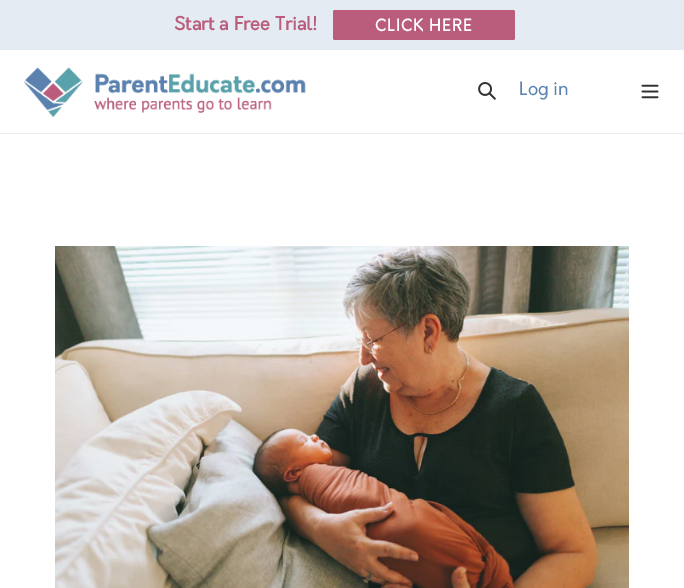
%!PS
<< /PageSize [684 588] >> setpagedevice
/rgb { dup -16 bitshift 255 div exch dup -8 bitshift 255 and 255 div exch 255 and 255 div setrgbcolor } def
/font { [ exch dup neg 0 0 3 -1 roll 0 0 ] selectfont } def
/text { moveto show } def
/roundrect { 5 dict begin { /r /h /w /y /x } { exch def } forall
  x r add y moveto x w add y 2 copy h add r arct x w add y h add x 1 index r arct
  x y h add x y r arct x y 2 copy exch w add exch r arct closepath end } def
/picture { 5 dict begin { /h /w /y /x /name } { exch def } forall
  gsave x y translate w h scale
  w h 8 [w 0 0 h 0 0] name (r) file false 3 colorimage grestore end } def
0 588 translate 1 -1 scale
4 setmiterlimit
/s1 { /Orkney-Bold 18 font 16#BA5D7C rgb } def
/s2 { /Orkney-Regular 18 font 16#5B82B0 rgb } def
16#FFFFFF rgb
0 0 684 588 rectfill
16#EBEBEB rgb
0 133 684 1 rectfill
16#E4EBF2 rgb
0 0 684 50 rectfill
s1
(Start a Free Trial!) 174 30 text
333 10 182 30 2 roundrect fill
/Orkney-Bold 16 font
16#FFFFFF rgb
375 31 moveto 1.25 0 (CLICK HERE) ashow
(pic1.raw) 23 67 283 51 picture
(pic2.raw) 478 82 18 18 picture
s2
(Log in) 519 95 text
(pic3.raw) 641 84 18 15 picture
(pic4.raw) 55 246 574 342 picture
showpage
